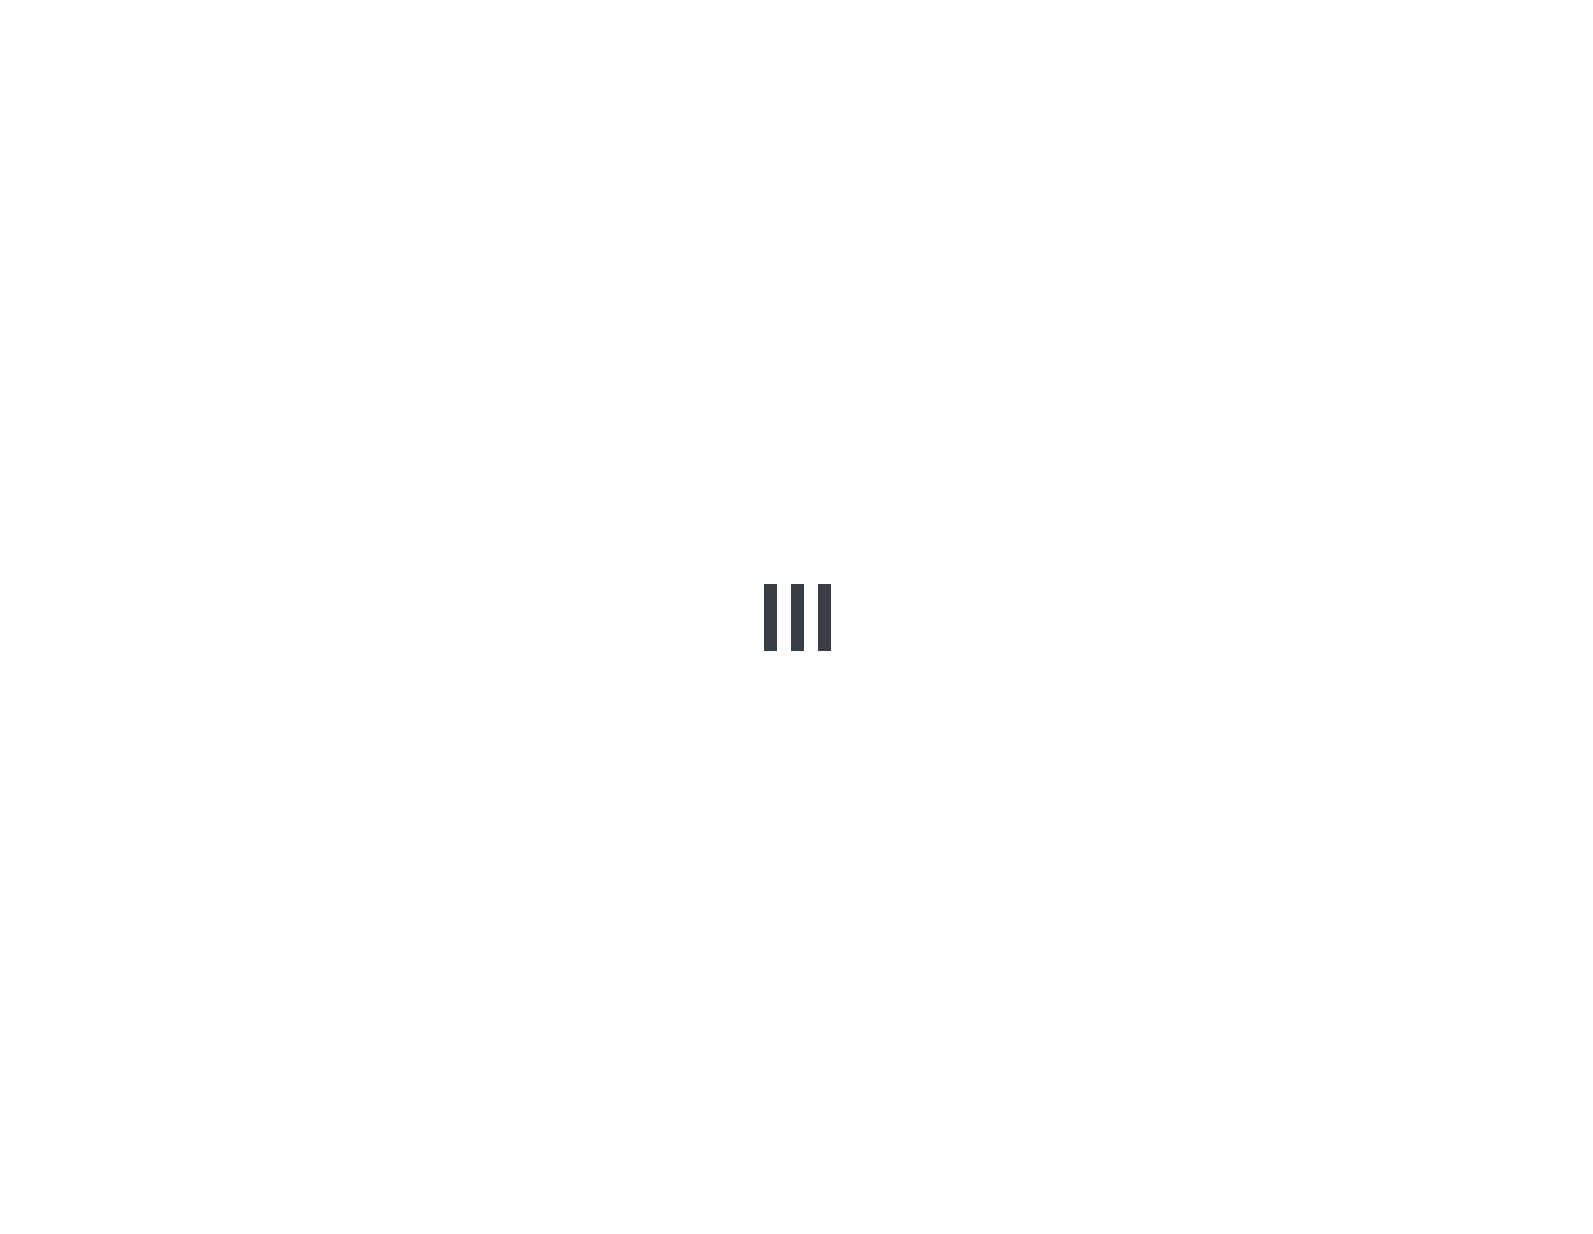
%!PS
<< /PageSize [1593 1234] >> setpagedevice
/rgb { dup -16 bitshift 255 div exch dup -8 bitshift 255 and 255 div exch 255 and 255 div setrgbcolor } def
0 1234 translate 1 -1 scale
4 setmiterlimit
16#FFFFFF rgb
0 0 1593 1234 rectfill
16#393E46 rgb
818 584 13 67 rectfill
791 584 13 67 rectfill
764 584 13 67 rectfill
showpage
